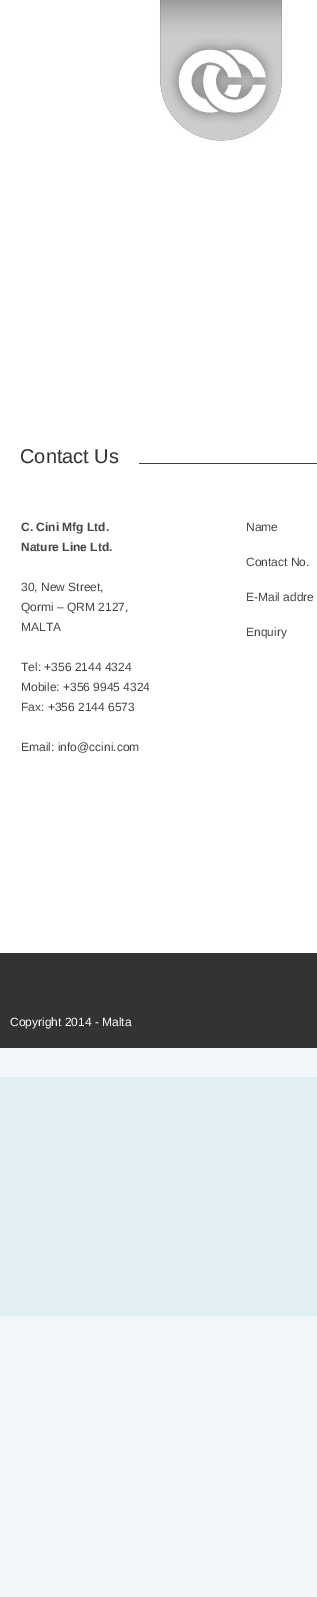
%!PS
<< /PageSize [317 1597] >> setpagedevice
/rgb { dup -16 bitshift 255 div exch dup -8 bitshift 255 and 255 div exch 255 and 255 div setrgbcolor } def
/font { [ exch dup neg 0 0 3 -1 roll 0 0 ] selectfont } def
/text { moveto show } def
/picture { 5 dict begin { /h /w /y /x /name } { exch def } forall
  gsave x y translate w h scale
  w h 8 [w 0 0 h 0 0] name (r) file false 3 colorimage grestore end } def
0 1597 translate 1 -1 scale
4 setmiterlimit
/s1 { /LiberationSans-Regular 20 font 16#343434 rgb } def
/s2 { /LiberationSans-Bold 12 font 16#464646 rgb } def
/s3 { /LiberationSans-Regular 12 font 16#464646 rgb } def
/s4 { /LiberationSans-Regular 12 font 16#FFFFFF rgb } def
16#F2F7FB rgb
0 0 317 1597 rectfill
(pic1.raw) 0 1048 317 269 picture
16#FFFFFF rgb
0 0 317 953 rectfill
(pic2.raw) 154 0 134 143 picture
(pic3.raw) 139 461 178 8 picture
s1
(Contact Us) 20 463 text
s2
(C. Cini Mfg Ltd.) 21 531 text
(Nature Line Ltd.) 21 551 text
s3
(30, New Street,) 21 591 text
(Qormi – QRM 2127,) 21 611 text
(MALTA) 21 631 text
(Tel: +356 2144 4324) 21 671 text
(Mobile: +356 9945 4324) 21 691 text
(Fax: +356 2144 6573) 21 711 text
(Email: info@ccini.com) 21 751 text
(Name) 246 531 text
(Contact No.) 246 566 text
(E-Mail addre) 246 601 text
(Enquiry) 246 636 text
16#333333 rgb
0 953 317 95 rectfill
s4
(Copyright 2014 - Malta) 10 1026 text
showpage
